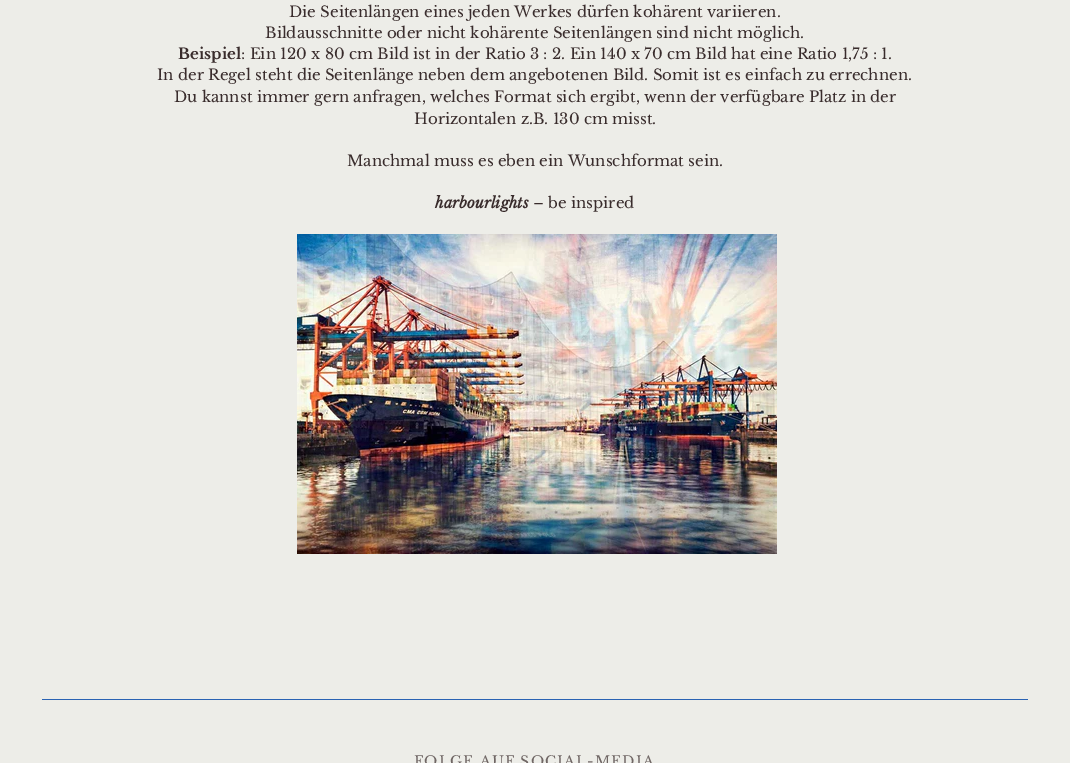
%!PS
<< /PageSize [1070 763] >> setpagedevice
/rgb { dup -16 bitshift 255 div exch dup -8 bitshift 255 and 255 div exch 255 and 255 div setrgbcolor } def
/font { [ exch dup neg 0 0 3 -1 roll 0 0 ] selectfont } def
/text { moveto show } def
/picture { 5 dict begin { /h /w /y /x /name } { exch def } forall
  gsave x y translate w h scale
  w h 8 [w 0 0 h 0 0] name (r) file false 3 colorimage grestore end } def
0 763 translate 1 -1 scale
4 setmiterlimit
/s1 { /LibreBaskerville-Regular 15 font 16#392C2C rgb } def
/s2 { /LibreBaskerville-Bold 15 font 16#392C2C rgb } def
/s3 { /LibreBaskerville-BoldItalic 15 font 16#392C2C rgb } def
16#EDEDE8 rgb
0 0 1070 763 rectfill
s1
(Die Seitenlängen eines jeden Werkes dürfen kohärent variieren.) 289 17 text
(Bildausschnitte oder nicht kohärente Seitenlängen sind nicht möglich.) 265 38 text
s2
(Beispiel) 178 59 text
s1
(: Ein 120 x 80 cm Bild ist in der Ratio 3 : 2. Ein 140 x 70 cm Bild hat eine Ratio 1,75 : 1.) 241 59 text
(In der Regel steht die Seitenlänge neben dem angebotenen Bild. Somit ist es einfach zu errechnen.) 157 80 text
(Du kannst immer gern anfragen, welches Format sich ergibt, wenn der verfügbare Platz in der) 174 102 text
(Horizontalen z.B. 130 cm misst.) 414 124 text
(Manchmal muss es eben ein Wunschformat sein.) 347 166 text
s3
(harbourlights) 435 208 text
s1
(– be inspired) 533 208 text
(pic1.raw) 297 234 480 320 picture
16#2A63B3 rgb
42 699 986 1 rectfill
/LibreBaskerville-Regular 14 font
16#6F6664 rgb
414 766 moveto 1.1 0 (FOLGE AUF SOCIAL-MEDIA) ashow
showpage
